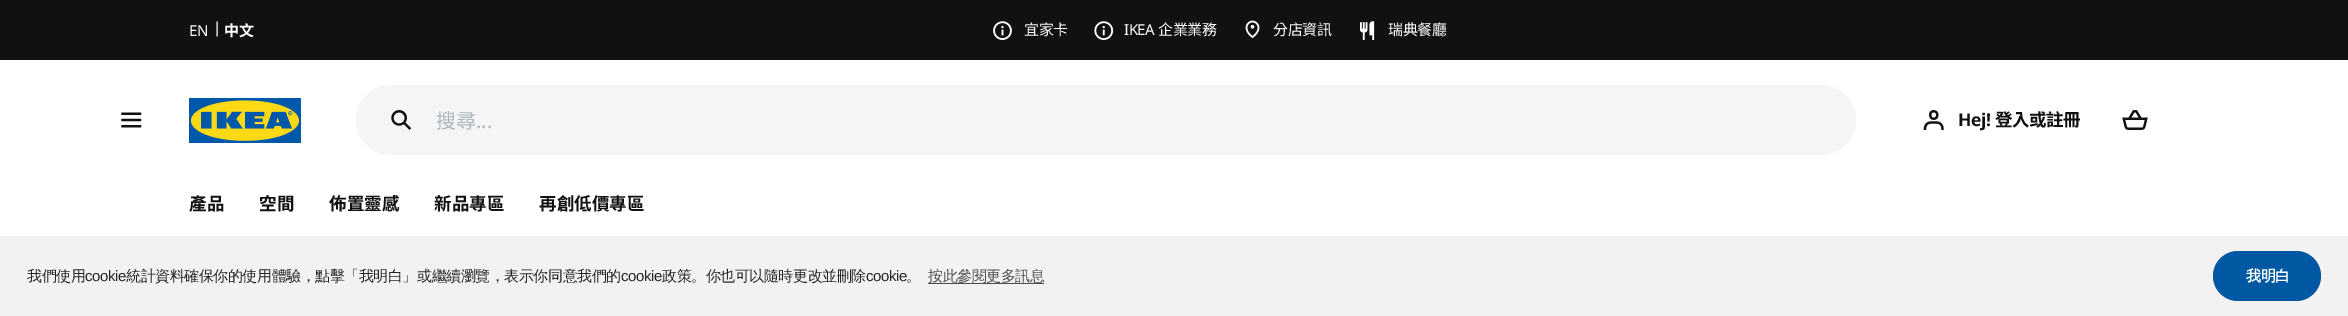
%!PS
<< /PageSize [2348 316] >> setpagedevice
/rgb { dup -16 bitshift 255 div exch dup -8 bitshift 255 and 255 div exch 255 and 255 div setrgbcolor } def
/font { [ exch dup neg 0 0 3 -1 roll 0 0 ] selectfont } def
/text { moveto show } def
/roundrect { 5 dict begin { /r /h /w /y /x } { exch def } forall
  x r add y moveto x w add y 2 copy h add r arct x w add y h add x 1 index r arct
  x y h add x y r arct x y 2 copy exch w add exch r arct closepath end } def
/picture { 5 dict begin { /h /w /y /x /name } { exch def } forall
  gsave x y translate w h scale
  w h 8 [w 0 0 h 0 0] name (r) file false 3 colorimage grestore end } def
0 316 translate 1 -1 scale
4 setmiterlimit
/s1 { /NotoSansTC-Regular 20 font 16#ADB5BD rgb } def
/s2 { /NotoSans-Regular 20 font 16#ADB5BD rgb } def
/s3 { /NotoSansTC-Bold 17.5 font 16#111111 rgb } def
16#FFFFFF rgb
0 0 2348 316 rectfill
16#111111 rgb
0 0 2348 60 rectfill
/NotoSans-Regular 15 font
16#FFFFFF rgb
189 36 moveto -0.45 0 (EN) ashow
213 33 moveto -0.45 0 (|) ashow
/NotoSansTC-Bold 15 font
224 36 moveto -0.45 0 (中文) ashow
(pic1.raw) 993 21 19 19 picture
/NotoSansTC-Regular 15 font
1024 35 moveto -0.45 0 (宜家卡) ashow
(pic2.raw) 1094 21 20 19 picture
/NotoSans-Regular 15 font
1124 35 moveto -0.45 0 (IKEA) ashow
/NotoSansTC-Regular 15 font
1158 35 moveto -0.45 0 (企業業務) ashow
(pic3.raw) 1245 20 15 19 picture
1273 35 moveto -0.45 0 (分店資訊) ashow
(pic4.raw) 1360 21 15 19 picture
1388 35 moveto -0.45 0 (瑞典餐廳) ashow
(pic5.raw) 121 112 21 16 picture
(pic6.raw) 189 98 112 45 picture
16#F5F5F5 rgb
356 85 1500 70 35 roundrect fill
(pic7.raw) 391 110 21 20 picture
s1
(搜尋) 436 128 text
s2
(...) 476 128 text
(pic8.raw) 1923 110 21 20 picture
/NotoSans-Bold 17.5 font
16#111111 rgb
1958 126 moveto -0.45 0 (Hej!) ashow
/NotoSansTC-Bold 17.5 font
1995 126 moveto -0.45 0 (登入或註冊) ashow
(pic9.raw) 2122 110 26 20 picture
(產品) 189 210 text
(空間) 259 210 text
(佈置靈感) 329 210 text
(新品專區) 434 210 text
(再創低價專區) 539 210 text
16#F2F2F2 rgb
0 236 2348 80 rectfill
/WenQuanYiZenHei-Medium 15 font
16#212529 rgb
27 281 moveto -0.45 0 (我們使用) ashow
/LiberationSans-Regular 15 font
85 281 moveto -0.45 0 (cookie) ashow
/WenQuanYiZenHei-Medium 15 font
126 281 moveto -0.45 0 (統計資料確保你的使用體驗，點擊「我明白」或繼續瀏覽，表示你同意我們的) ashow
/LiberationSans-Regular 15 font
621 281 moveto -0.45 0 (cookie) ashow
/WenQuanYiZenHei-Medium 15 font
662 281 moveto -0.45 0 (政策。你也可以隨時更改並刪除) ashow
/LiberationSans-Regular 15 font
866 281 moveto -0.45 0 (cookie) ashow
/WenQuanYiZenHei-Medium 15 font
906 281 moveto -0.45 0 (。) ashow
16#4B4E51 rgb
928 283 116 1 rectfill
928 281 moveto -0.45 0 (按此參閱更多訊息) ashow
16#0058A3 rgb
2213 251 108 50 25 roundrect fill
/WenQuanYiZenHei-Bold 15 font
16#FFFFFF rgb
2246 281 moveto -0.45 0 (我明白) ashow
showpage
